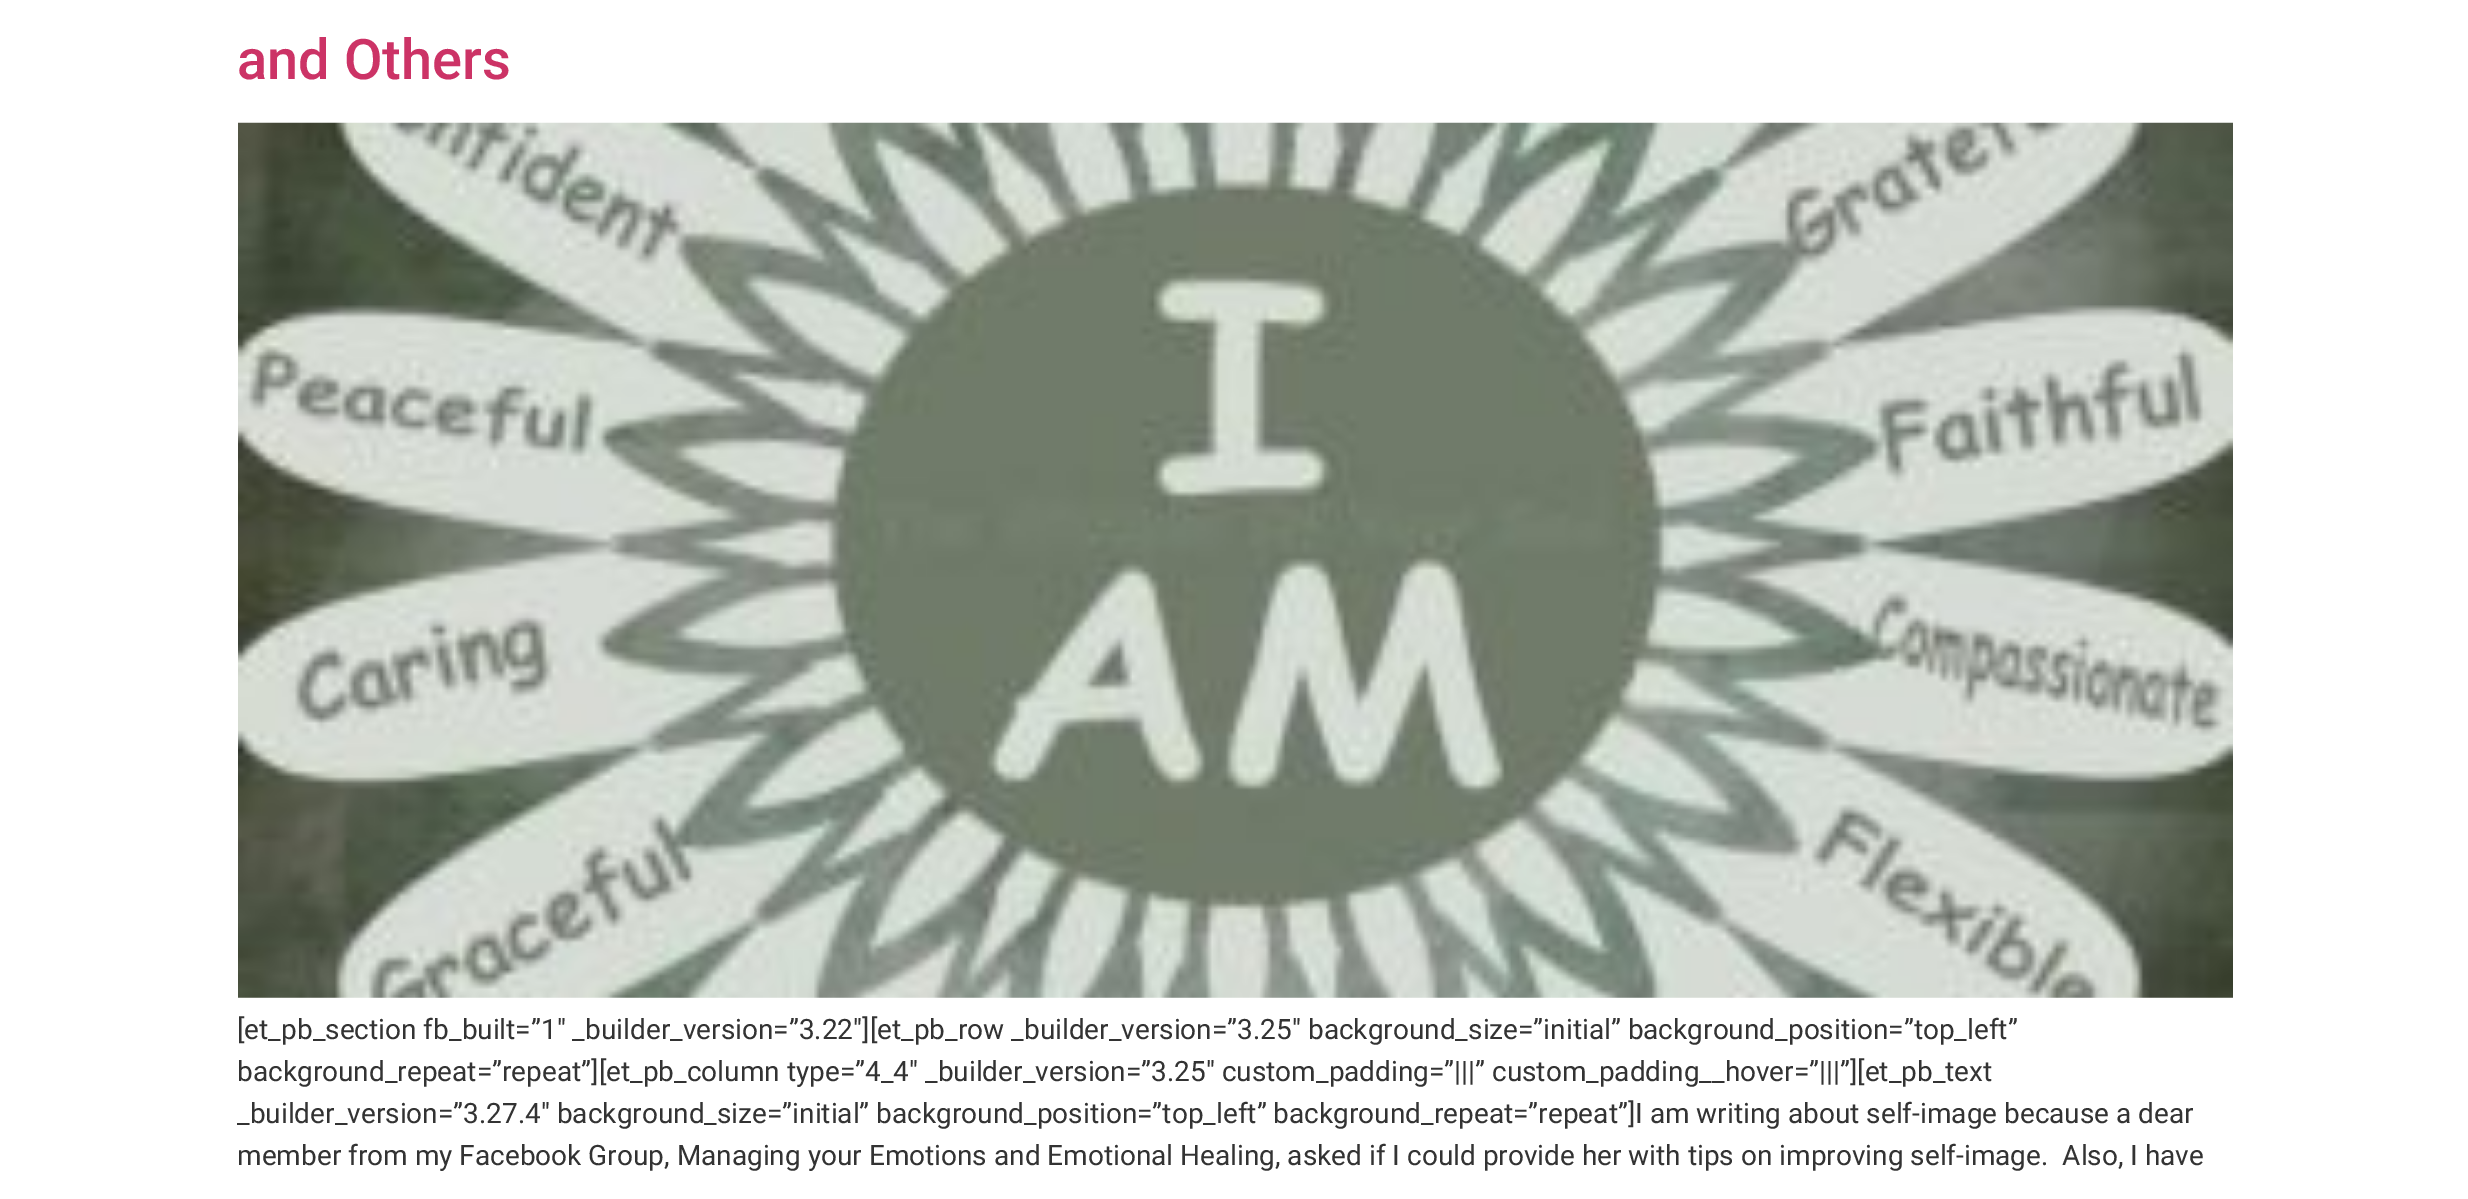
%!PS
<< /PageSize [2468 1199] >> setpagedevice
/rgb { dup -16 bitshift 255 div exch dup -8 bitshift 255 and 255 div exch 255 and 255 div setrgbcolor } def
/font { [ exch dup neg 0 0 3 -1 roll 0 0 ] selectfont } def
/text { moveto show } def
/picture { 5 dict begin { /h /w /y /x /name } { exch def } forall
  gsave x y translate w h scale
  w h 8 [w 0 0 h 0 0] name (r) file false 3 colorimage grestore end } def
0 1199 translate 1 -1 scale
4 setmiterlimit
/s1 { /Roboto-Medium 56 font 16#CC3366 rgb } def
/s2 { /Roboto-Regular 28 font 16#333333 rgb } def
16#FFFFFF rgb
0 0 2468 1199 rectfill
s1
(and Others) 237 79 text
(pic1.raw) 238 122 1995 876 picture
s2
([et_pb_section fb_built=”1″ _builder_version=”3.22″][et_pb_row _builder_version=”3.25″ background_size=”initial” background_position=”top_left”) 237 1039 text
(background_repeat=”repeat”][et_pb_column type=”4_4″ _builder_version=”3.25″ custom_padding=”|||” custom_padding__hover=”|||”][et_pb_text) 237 1081 text
(_builder_version=”3.27.4″ background_size=”initial” background_position=”top_left” background_repeat=”repeat”]I am writing about self-image because a dear) 237 1123 text
(member from my Facebook Group, Managing your Emotions and Emotional Healing, asked if I could provide her with tips on improving self-image.  Also, I have) 237 1165 text
showpage
